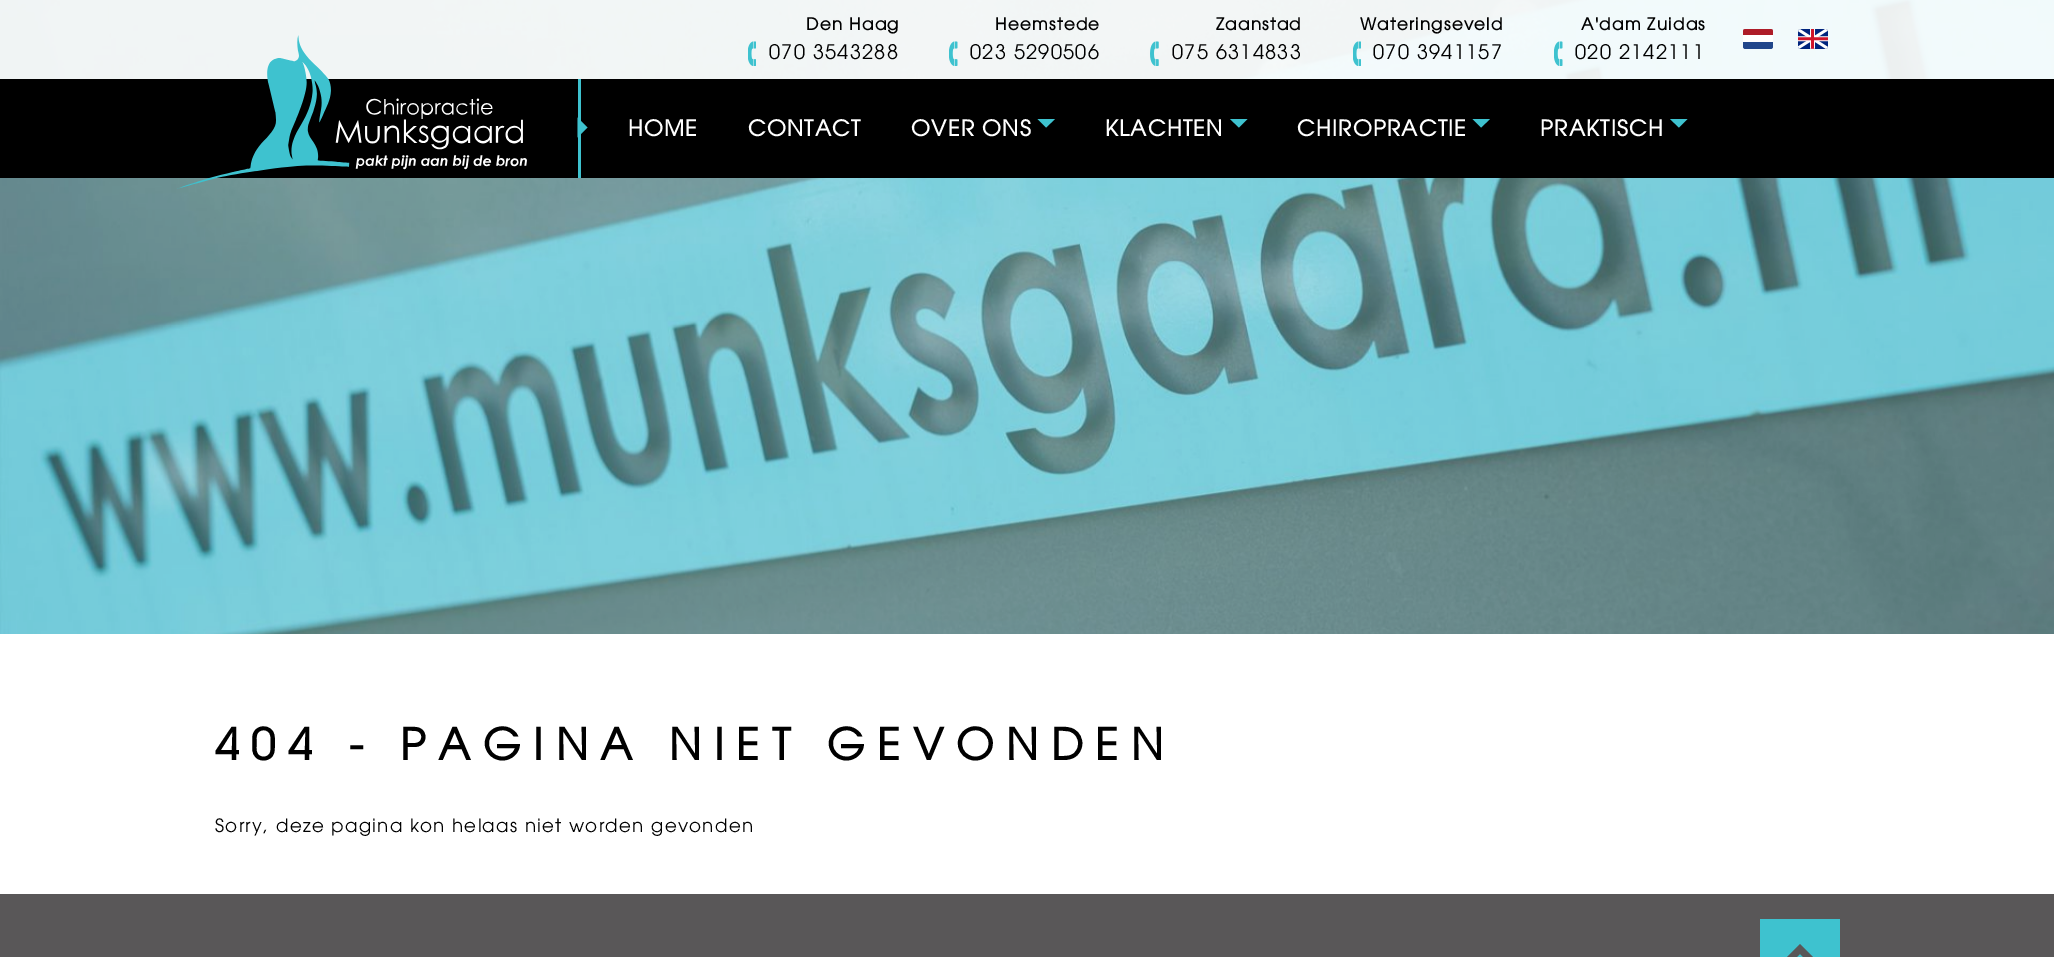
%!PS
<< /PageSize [2054 957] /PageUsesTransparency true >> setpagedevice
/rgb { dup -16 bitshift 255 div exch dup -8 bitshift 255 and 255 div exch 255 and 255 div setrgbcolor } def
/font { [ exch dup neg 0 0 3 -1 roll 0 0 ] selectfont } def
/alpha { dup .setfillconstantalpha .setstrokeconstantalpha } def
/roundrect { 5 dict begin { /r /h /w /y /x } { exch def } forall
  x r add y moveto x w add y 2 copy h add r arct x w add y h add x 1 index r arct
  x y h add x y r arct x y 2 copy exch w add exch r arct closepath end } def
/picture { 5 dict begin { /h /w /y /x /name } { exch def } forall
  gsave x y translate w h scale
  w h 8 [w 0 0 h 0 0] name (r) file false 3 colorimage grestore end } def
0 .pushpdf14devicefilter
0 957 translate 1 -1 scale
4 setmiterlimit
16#FFFFFF rgb
0 0 2054 957 rectfill
(pic1.raw) 0 0 2054 634 picture
0.9 alpha
0 0 2054 79 rectfill
/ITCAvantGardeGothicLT-Bold 16.75 font
1 alpha
16#000000 rgb
806 30 moveto 1.25 0 (Den Haag) ashow
(pic2.raw) 748 41 8 25 picture
/ITCAvantGardeGothicLT-Regular 20 font
769 59 moveto 1.25 0 (070 3543288) ashow
/ITCAvantGardeGothicLT-Bold 16.75 font
995 30 moveto 1.25 0 (Heemstede) ashow
(pic3.raw) 949 41 9 25 picture
/ITCAvantGardeGothicLT-Regular 20 font
970 59 moveto 1.25 0 (023 5290506) ashow
/ITCAvantGardeGothicLT-Bold 16.75 font
1216 30 moveto 1.25 0 (Zaanstad) ashow
(pic4.raw) 1150 41 9 25 picture
/ITCAvantGardeGothicLT-Regular 20 font
1172 59 moveto 1.25 0 (075 6314833) ashow
/ITCAvantGardeGothicLT-Bold 16.75 font
1360 30 moveto 1.25 0 (Wateringseveld) ashow
(pic5.raw) 1353 41 8 25 picture
/ITCAvantGardeGothicLT-Regular 20 font
1373 59 moveto 1.25 0 (070 3941157) ashow
/ITCAvantGardeGothicLT-Bold 16.75 font
1581 30 moveto 1.25 0 (A'dam Zuidas) ashow
(pic6.raw) 1554 41 9 25 picture
/ITCAvantGardeGothicLT-Regular 20 font
1575 59 moveto 1.25 0 (020 2142111) ashow
16#21468B rgb
1743 29 30 20 2.5 roundrect fill
16#FFFFFF rgb
1745.5 29 moveto 1770.5 29 lineto 1772 29 1773 30 1773 31.5 curveto 1773 42 lineto 1743 42 lineto 1743 31.5 lineto 1743 30 1744 29 1745.5 29 curveto closepath fill
16#AE1C28 rgb
1745.5 29 moveto 1770.5 29 lineto 1772 29 1773 30 1773 31.5 curveto 1773 35 lineto 1743 35 lineto 1743 31.5 lineto 1743 30 1744 29 1745.5 29 curveto closepath fill
(pic7.raw) 1798 29 30 20 picture
16#000000 rgb
0 79 2054 99 rectfill
(pic8.raw) 177 35 350 154 picture
16#3EC2CF rgb
578 79 3 99 rectfill
577.5 137.5 moveto 577.5 117.5 lineto 587.5 127.5 lineto closepath fill
/ITCAvantGardeGothicLT-Bold 21.75 font
16#FFFFFF rgb
628 136 moveto 1.25 0 (HOME) ashow
748 136 moveto 1.25 0 (CONTACT) ashow
911 136 moveto 1.25 0 (OVER ONS) ashow
16#3EC2CF rgb
1037.5 119 moveto 1055 119 lineto 1046 127.5 lineto closepath fill
16#FFFFFF rgb
1105 136 moveto 1.25 0 (KLACHTEN) ashow
16#3EC2CF rgb
1230 119 moveto 1247.5 119 lineto 1239 127.5 lineto closepath fill
16#FFFFFF rgb
1297 136 moveto 1.25 0 (CHIROPRACTIE) ashow
16#3EC2CF rgb
1472.5 119 moveto 1490 119 lineto 1481 127.5 lineto closepath fill
16#FFFFFF rgb
1540 136 moveto 1.25 0 (PRAKTISCH) ashow
16#3EC2CF rgb
1670 119 moveto 1687.5 119 lineto 1679 127.5 lineto closepath fill
/ITCAvantGardeGothicLT-Bold 43.3 font
16#000000 rgb
215 760 moveto 12.5 0 (404 - PAGINA NIET GEVONDEN) ashow
/ITCAvantGardeGothicLT-Regular 18.3 font
215 832 moveto 1.25 0 (Sorry, deze pagina kon helaas niet worden gevonden) ashow
16#595758 rgb
0 894 2054 63 rectfill
16#3EC2CF rgb
1760 919 80 38 rectfill
16#595758 rgb
1817 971 moveto 1800 954 lineto 1783 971 lineto 1778 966 lineto 1800 944 lineto 1822 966 lineto closepath fill
.poppdf14devicefilter showpage
